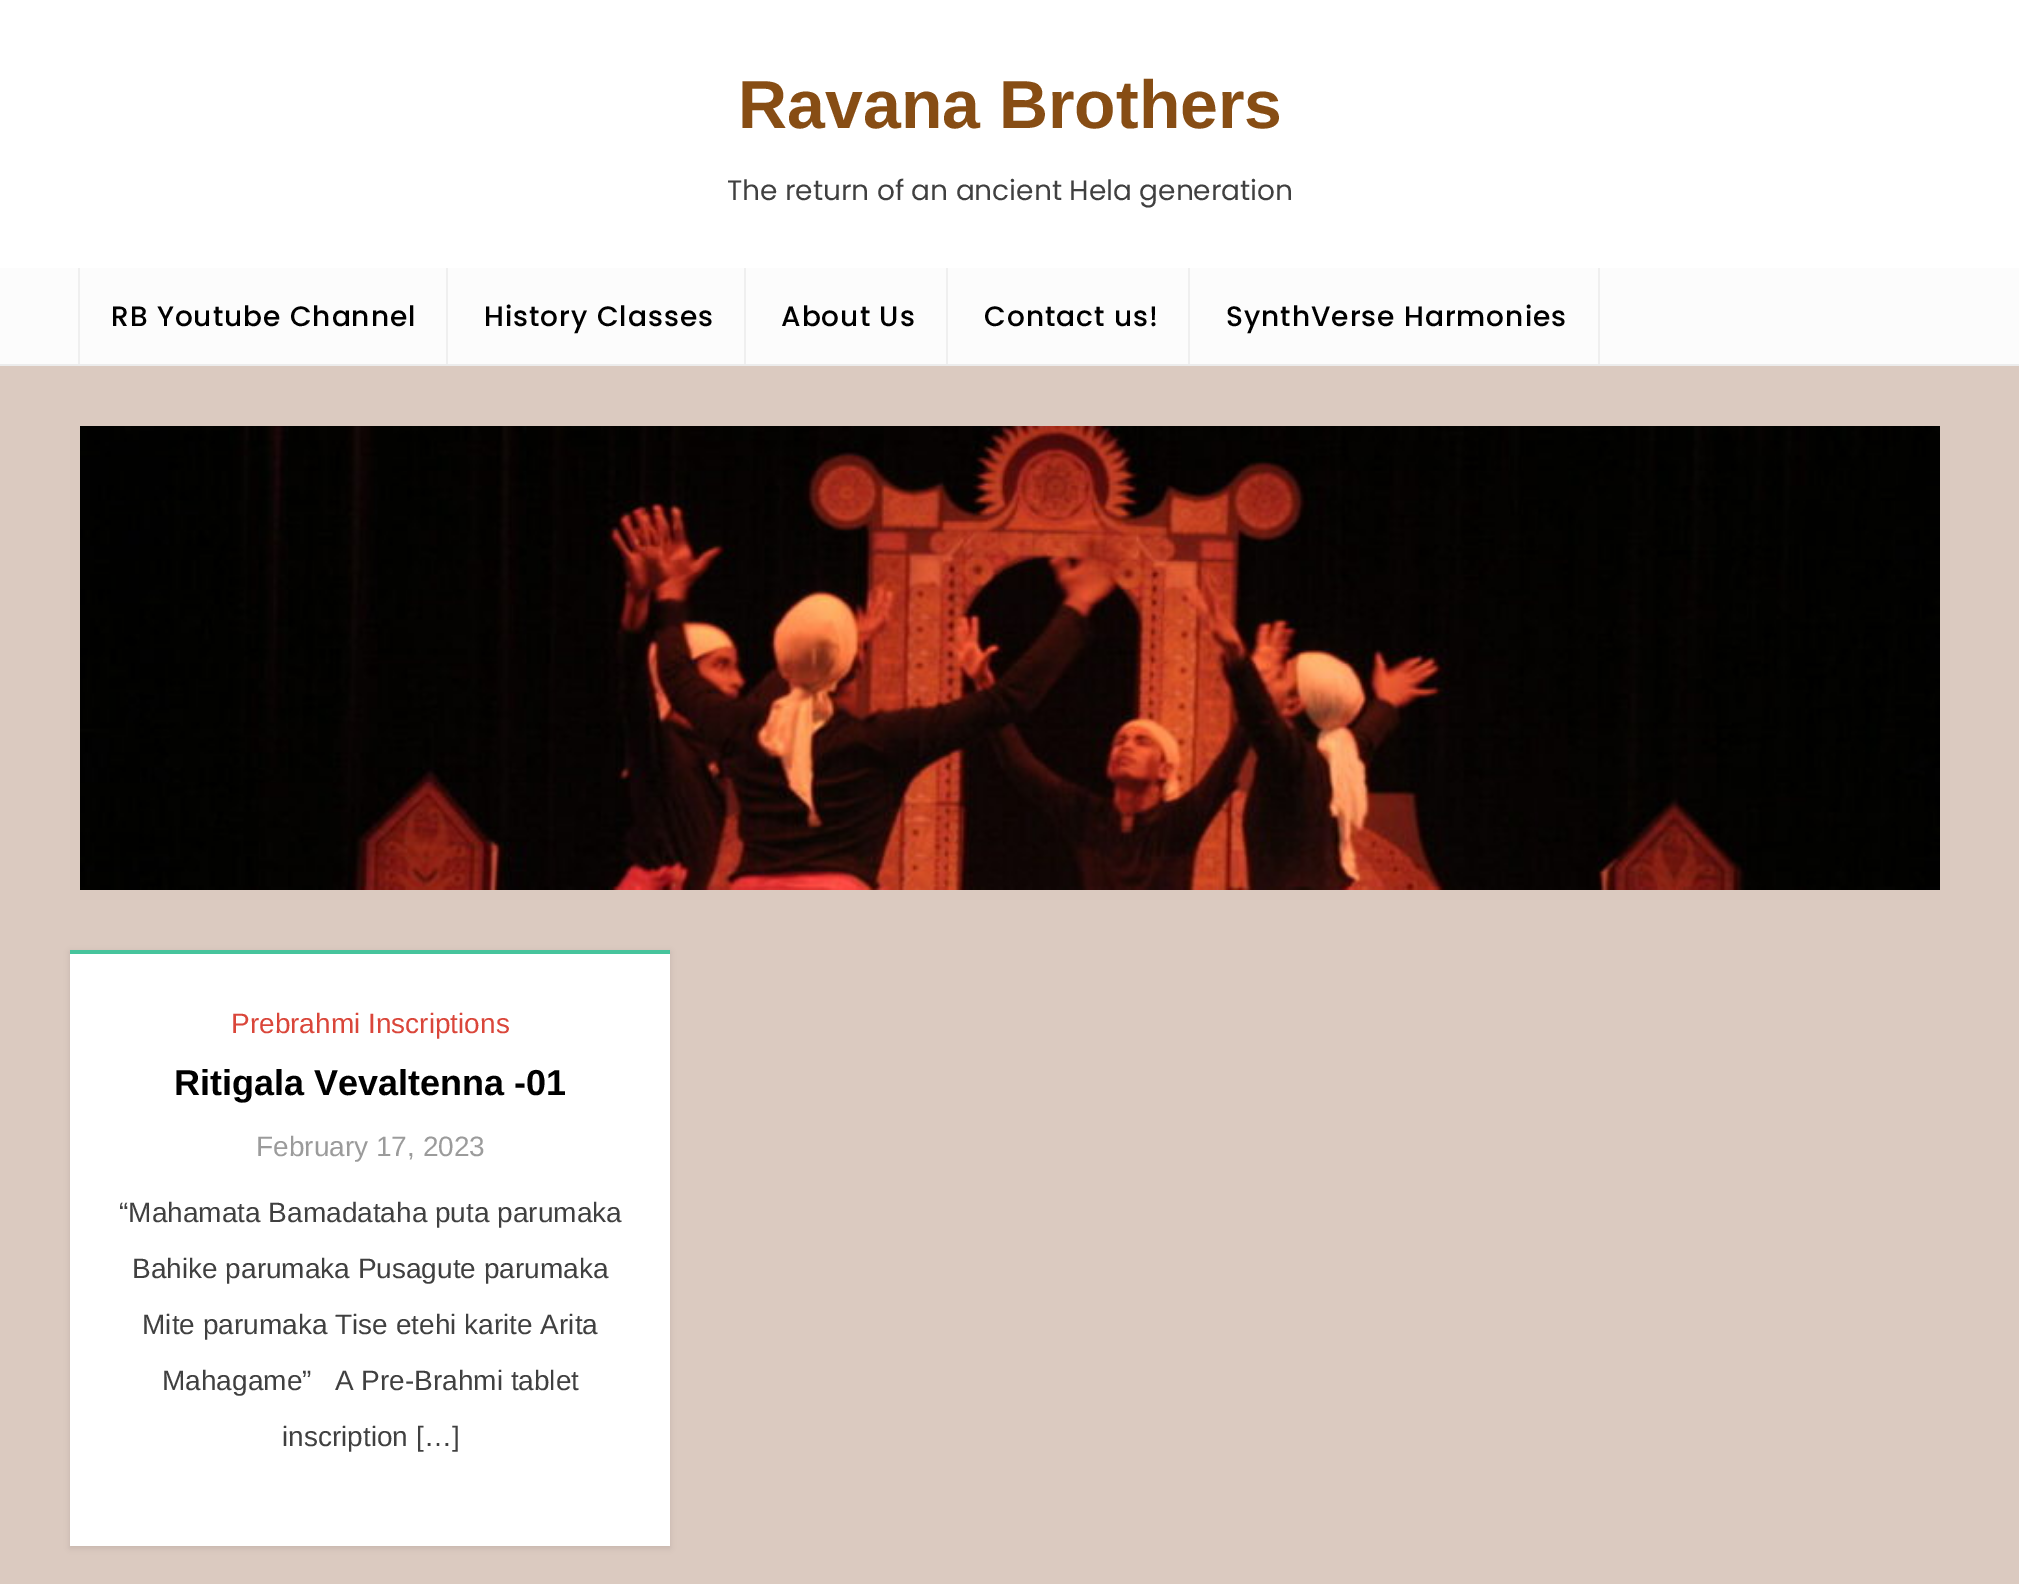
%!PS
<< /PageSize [2019 1584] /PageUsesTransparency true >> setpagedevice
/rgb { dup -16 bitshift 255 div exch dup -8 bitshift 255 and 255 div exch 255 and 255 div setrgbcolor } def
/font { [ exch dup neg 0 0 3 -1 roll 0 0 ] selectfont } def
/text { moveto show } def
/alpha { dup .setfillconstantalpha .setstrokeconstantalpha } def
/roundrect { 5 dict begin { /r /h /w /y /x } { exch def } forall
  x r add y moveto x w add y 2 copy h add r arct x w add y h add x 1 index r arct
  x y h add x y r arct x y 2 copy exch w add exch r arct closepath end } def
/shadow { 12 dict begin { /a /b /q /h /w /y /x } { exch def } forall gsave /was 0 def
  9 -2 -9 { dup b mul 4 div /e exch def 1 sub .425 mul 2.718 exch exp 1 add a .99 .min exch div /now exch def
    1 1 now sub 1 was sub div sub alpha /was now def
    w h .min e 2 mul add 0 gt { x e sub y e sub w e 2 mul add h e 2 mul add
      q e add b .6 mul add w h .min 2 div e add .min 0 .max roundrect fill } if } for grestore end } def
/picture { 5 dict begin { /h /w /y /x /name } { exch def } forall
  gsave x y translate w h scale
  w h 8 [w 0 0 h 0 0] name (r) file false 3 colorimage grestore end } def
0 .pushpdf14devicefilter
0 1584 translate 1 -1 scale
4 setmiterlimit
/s1 { /LiberationSans-Bold 68 font 16#874D14 rgb } def
/s2 { /Poppins-Regular 28 font 16#404040 rgb } def
/s3 { /LiberationSans-Regular 28 font 16#DA463A rgb } def
/s4 { /LiberationSans-Bold 36 font 16#000000 rgb } def
/s5 { /LiberationSans-Regular 28 font 16#9B9B9B rgb } def
/s6 { /LiberationSans-Regular 28 font 16#404040 rgb } def
16#DBCAC0 rgb
0 0 2019 1584 rectfill
16#ECECEC rgb
0 364 2019 2 rectfill
16#FFFFFF rgb
0 0 2019 268 rectfill
s1
(Ravana Brothers) 738 128 text
s2
(The return of an ancient Hela generation) 727 200 text
16#FCFCFC rgb
0 268 2019 96 rectfill
16#EFEFEF rgb
446 268 2 96 rectfill
78 268 2 96 rectfill
/Poppins-Medium 28 font
16#000000 rgb
111 326 moveto 1 0 (RB Youtube Channel) ashow
16#EFEFEF rgb
744 268 2 96 rectfill
16#000000 rgb
484 326 moveto 1 0 (History Classes) ashow
16#EFEFEF rgb
946 268 2 96 rectfill
16#000000 rgb
781 326 moveto 1 0 (About Us) ashow
16#EFEFEF rgb
1188 268 2 96 rectfill
16#000000 rgb
984 326 moveto 1 0 (Contact us!) ashow
16#EFEFEF rgb
1598 268 2 96 rectfill
16#000000 rgb
1226 326 moveto 1 0 (SynthVerse Harmonies) ashow
(pic1.raw) 80 426 1860 464 picture
70 952 600 596 0 3 0.1 shadow
16#FFFFFF rgb
70 954 600 592 rectfill
16#46C49C rgb
70 950 600 4 rectfill
s3
(Prebrahmi Inscriptions) 231 1033 text
s4
(Ritigala Vevaltenna -01) 174 1095 text
s5
(February 17, 2023) 256 1156 text
s6
(“Mahamata Bamadataha puta parumaka) 119 1222 text
(Bahike parumaka Pusagute parumaka) 132 1278 text
(Mite parumaka Tise etehi karite Arita) 142 1334 text
(Mahagame”   A Pre-Brahmi tablet) 162 1390 text
(inscription […]) 282 1446 text
.poppdf14devicefilter showpage
